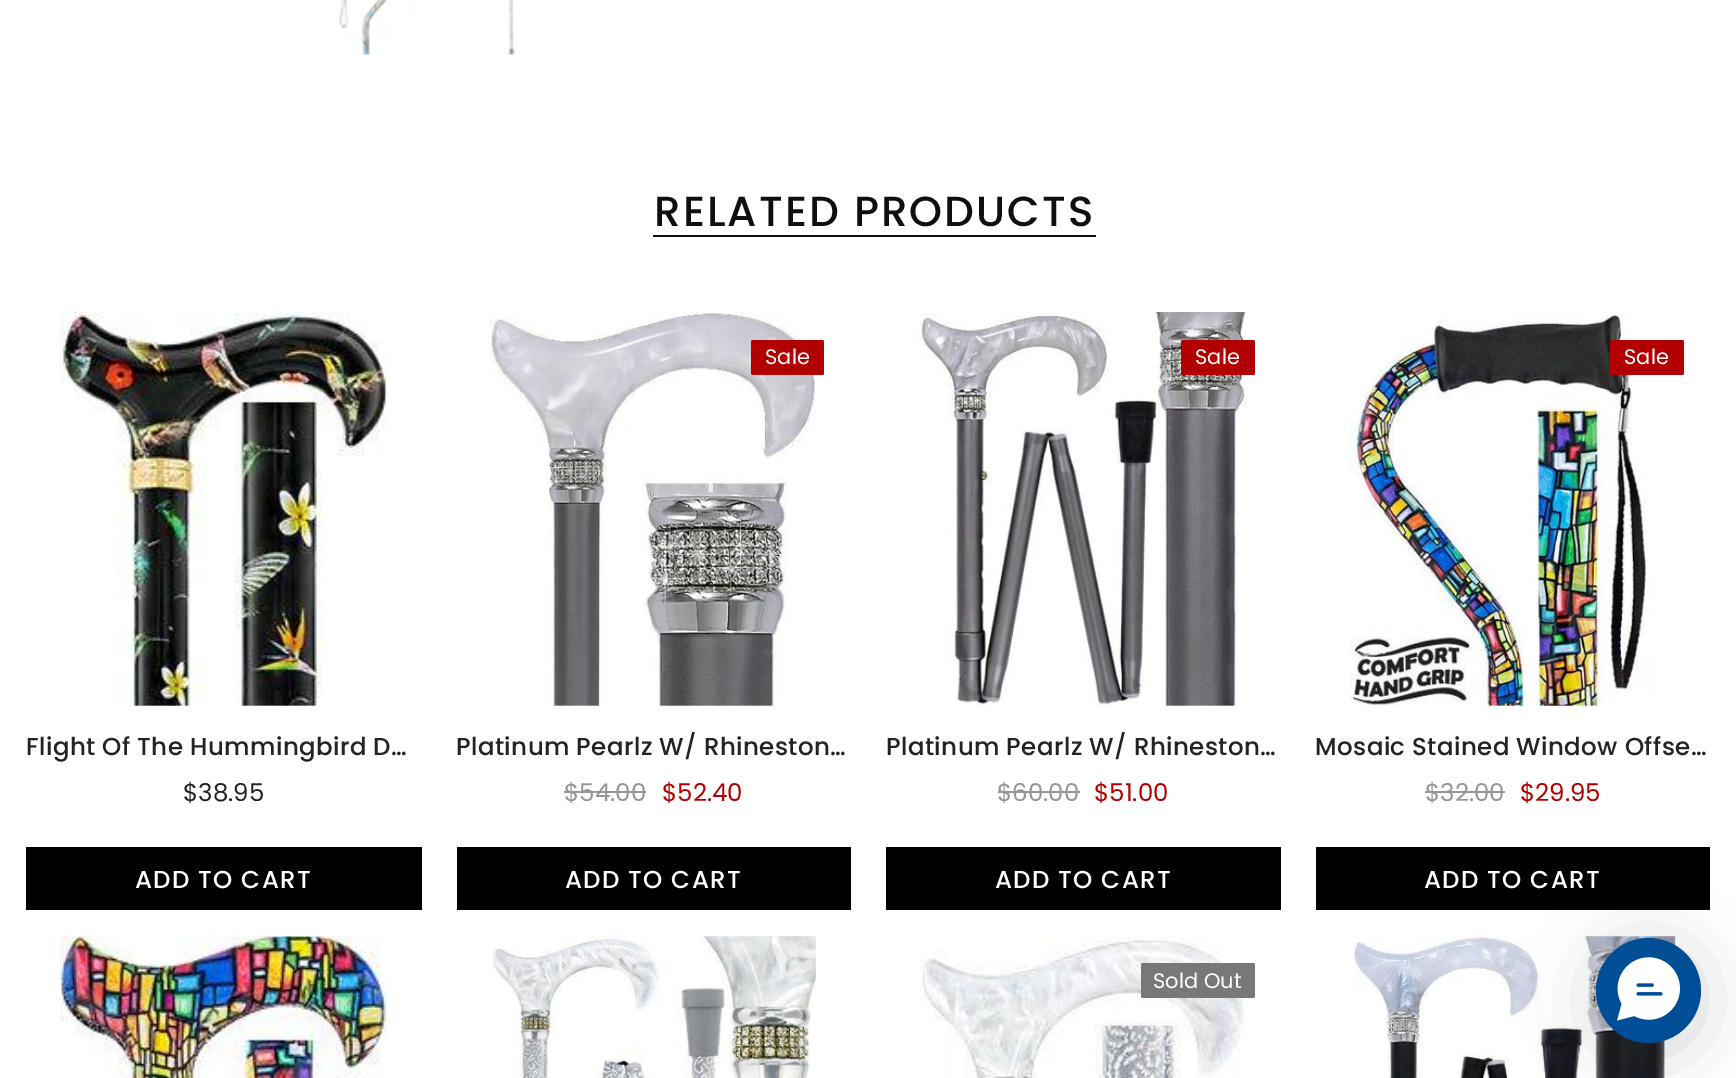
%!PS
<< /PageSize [1736 1078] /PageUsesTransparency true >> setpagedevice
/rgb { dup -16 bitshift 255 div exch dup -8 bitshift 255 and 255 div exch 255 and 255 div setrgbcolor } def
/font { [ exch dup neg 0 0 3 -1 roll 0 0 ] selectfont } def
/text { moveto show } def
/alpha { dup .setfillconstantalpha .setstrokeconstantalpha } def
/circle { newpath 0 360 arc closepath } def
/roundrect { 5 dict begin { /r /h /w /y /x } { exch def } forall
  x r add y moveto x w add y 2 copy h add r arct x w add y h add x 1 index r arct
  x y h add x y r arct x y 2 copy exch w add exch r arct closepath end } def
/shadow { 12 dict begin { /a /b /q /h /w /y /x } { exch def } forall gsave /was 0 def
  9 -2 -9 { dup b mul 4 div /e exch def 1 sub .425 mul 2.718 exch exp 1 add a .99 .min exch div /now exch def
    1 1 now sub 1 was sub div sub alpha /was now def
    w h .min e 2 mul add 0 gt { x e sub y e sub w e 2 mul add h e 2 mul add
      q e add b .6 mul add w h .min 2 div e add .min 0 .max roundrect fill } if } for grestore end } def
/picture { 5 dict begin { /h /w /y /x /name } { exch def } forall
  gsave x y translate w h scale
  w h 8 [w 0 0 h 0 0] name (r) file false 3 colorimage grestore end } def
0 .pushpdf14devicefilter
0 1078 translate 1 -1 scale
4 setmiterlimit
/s1 { /Poppins-Regular 24.5 font 16#232323 rgb } def
/s2 { /Poppins-Regular 21 font 16#FFFFFF rgb } def
/s3 { /Poppins-Regular 24.5 font 16#969696 rgb } def
/s4 { /Poppins-Regular 24.5 font 16#B20000 rgb } def
16#FFFFFF rgb
0 0 1736 1078 rectfill
(pic1.raw) 339 0 71 55 picture
(pic2.raw) 508 0 8 55 picture
/Poppins-Medium 42 font
16#0F0F0F rgb
654 226 moveto 2.1 0 (RELATED PRODUCTS) ashow
653 235 443 2 rectfill
(pic3.raw) 60 312 327 394 picture
/Poppins-Medium 24.5 font
16#232323 rgb
26 755 moveto 0.4 0 (Flight Of The Hummingbird D…) ashow
s1
($38.95) 183 801 text
16#000000 rgb
26 847 396 63 rectfill
/Poppins-Medium 24.5 font
16#FFFFFF rgb
135 888 moveto 1.25 0 (ADD TO CART) ashow
(pic4.raw) 490 312 326 394 picture
16#B20000 rgb
751 340 73 35 2 roundrect fill
s2
(Sale) 765 364 text
/Poppins-Medium 24.5 font
16#232323 rgb
456 755 moveto 0.4 0 (Platinum Pearlz W/ Rhineston…) ashow
s3
($54.00) 564 801 text
564 791 82 2 rectfill
s4
($52.40) 662 801 text
16#000000 rgb
457 847 394 63 rectfill
/Poppins-Medium 24.5 font
16#FFFFFF rgb
565 888 moveto 1.25 0 (ADD TO CART) ashow
(pic5.raw) 919 311 328 395 picture
16#B20000 rgb
1181 340 74 35 2 roundrect fill
s2
(Sale) 1195 364 text
/Poppins-Medium 24.5 font
16#232323 rgb
886 755 moveto 0.4 0 (Platinum Pearlz W/ Rhineston…) ashow
s3
($60.00) 997 801 text
998 791 82 2 rectfill
s4
($51.00) 1094 801 text
16#000000 rgb
886 847 395 63 rectfill
/Poppins-Medium 24.5 font
16#FFFFFF rgb
995 888 moveto 1.25 0 (ADD TO CART) ashow
(pic6.raw) 1349 312 304 394 picture
16#B20000 rgb
1610 340 74 35 2 roundrect fill
s2
(Sale) 1624 364 text
/Poppins-Medium 24.5 font
16#232323 rgb
1315 755 moveto 0.4 0 (Mosaic Stained Window Offse…) ashow
s3
($32.00) 1425 801 text
1425 791 80 2 rectfill
s4
($29.95) 1520 801 text
16#000000 rgb
1316 847 394 63 rectfill
/Poppins-Medium 24.5 font
16#FFFFFF rgb
1424 888 moveto 1.25 0 (ADD TO CART) ashow
(pic7.raw) 60 936 327 142 picture
(pic8.raw) 491 936 325 142 picture
(pic9.raw) 919 936 327 142 picture
16#787878 rgb
1141 963 114 35 2 roundrect fill
s2
(Sold Out) 1153 988 text
(pic10.raw) 1350 936 326 142 picture
16#000000 rgb
1596 947 105 105 52.5 35 0.16 shadow
16#004E96 rgb
1648.5 990.5 52.5 circle fill
(pic11.raw) 1617 957 63 64 picture
.poppdf14devicefilter showpage
